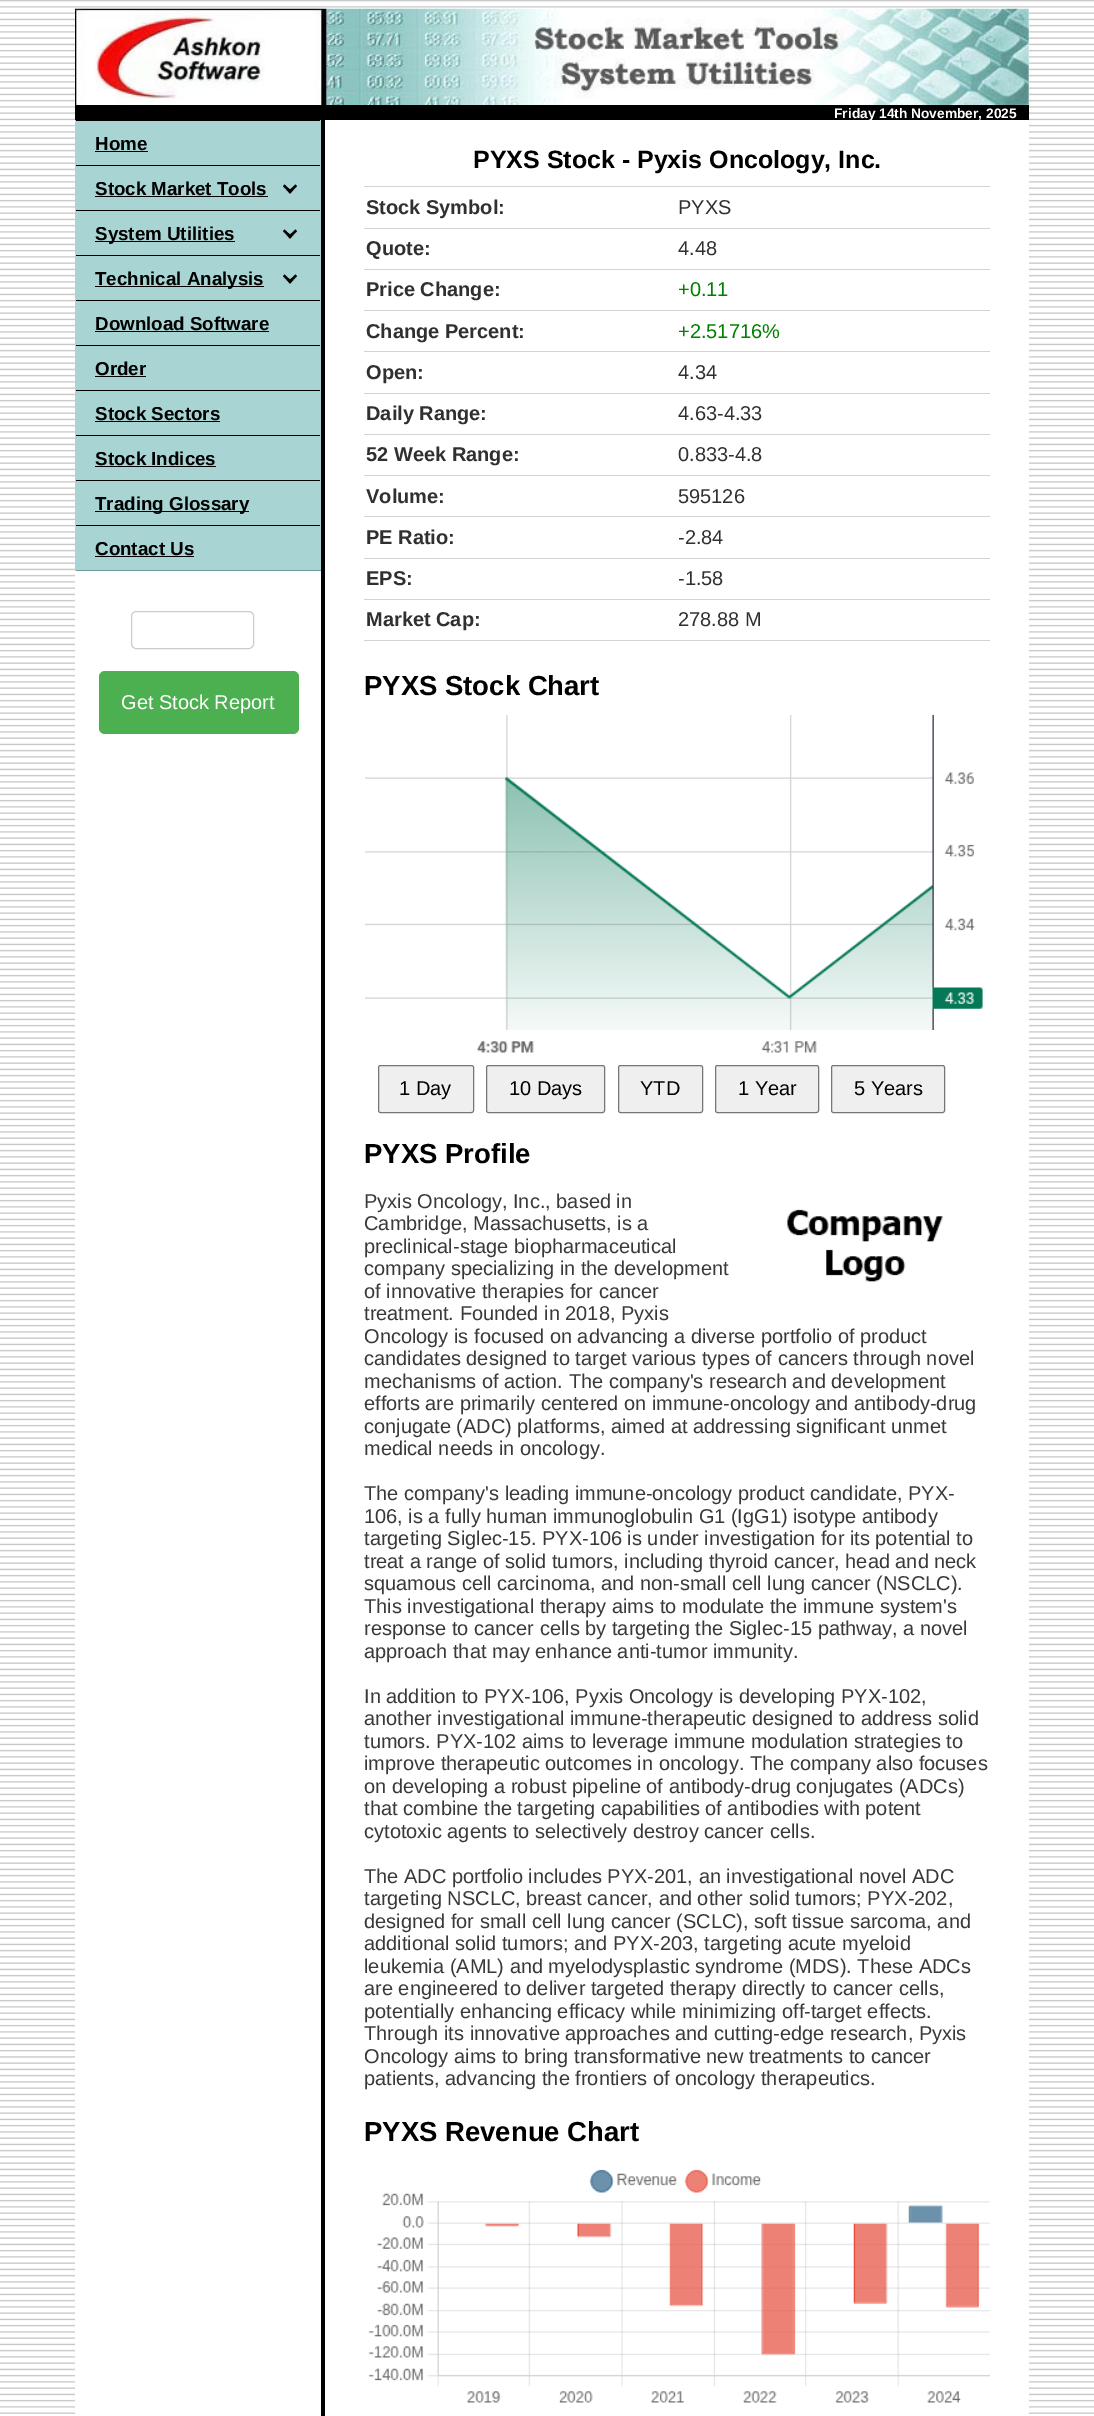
%!PS
<< /PageSize [1094 2416] >> setpagedevice
/rgb { dup -16 bitshift 255 div exch dup -8 bitshift 255 and 255 div exch 255 and 255 div setrgbcolor } def
/font { [ exch dup neg 0 0 3 -1 roll 0 0 ] selectfont } def
/text { moveto show } def
/roundrect { 5 dict begin { /r /h /w /y /x } { exch def } forall
  x r add y moveto x w add y 2 copy h add r arct x w add y h add x 1 index r arct
  x y h add x y r arct x y 2 copy exch w add exch r arct closepath end } def
/picture { 5 dict begin { /h /w /y /x /name } { exch def } forall
  gsave x y translate w h scale
  w h 8 [w 0 0 h 0 0] name (r) file false 3 colorimage grestore end } def
0 2416 translate 1 -1 scale
4 setmiterlimit
/s1 { /LiberationSans-Bold 13.75 font 16#FFFFFF rgb } def
/s2 { /LiberationSans-Bold 18.75 font 16#000000 rgb } def
/s3 { /LiberationSans-Regular 20 font 16#FFFFFF rgb } def
/s4 { /LiberationSans-Bold 25 font 16#000000 rgb } def
/s5 { /LiberationSans-Bold 20 font 16#303030 rgb } def
/s6 { /LiberationSans-Regular 20 font 16#303030 rgb } def
/s7 { /LiberationSans-Regular 20 font 16#008000 rgb } def
/s8 { /LiberationSans-Bold 27.5 font 16#000000 rgb } def
/s9 { /LiberationSans-Regular 20 font 16#000000 rgb } def
/s10 { /LiberationSans-Regular 20 font 16#393939 rgb } def
16#FFFFFF rgb
0 0 1094 2416 rectfill
(pic1.raw) 0 0 1094 2414 picture
75 12 954 2402 rectfill
(pic2.raw) 75 8 954 97 picture
16#000000 rgb
75 105 954 15 rectfill
s1
(Friday 14th November, 2025) 834 118 text
16#A9D4D4 rgb
76 121 244 449 rectfill
16#000000 rgb
75 120 246 1 rectfill
16#A9D4D4 rgb
320 120 1 45 rectfill
75 120 1 45 rectfill
s2
(Home) 95 150 text
95 151 53 1 rectfill
75 165 246 1 rectfill
16#A9D4D4 rgb
320 165 1 45 rectfill
75 165 1 45 rectfill
s2
(Stock Market Tools) 95 195 text
95 196 173 1 rectfill
16#A1C9C9 rgb
290 194.5 moveto 283 187.5 lineto 284.5 185.5 lineto 290 191 lineto closepath 297 187.5 moveto 290 194.5 lineto 290 191 lineto 295.5 185.5 lineto closepath fill
16#000000 rgb
290 193.5 moveto 283 186 lineto 284.5 184.5 lineto 292 191.5 lineto closepath fill
290 193.5 moveto 288 191.5 lineto 295.5 184.5 lineto 297 186 lineto closepath fill
75 210 246 1 rectfill
16#A9D4D4 rgb
320 210 1 45 rectfill
75 210 1 45 rectfill
16#000000 rgb
95 241 140 1 rectfill
(System Utilities) 95 240 text
16#A1C9C9 rgb
290 239.5 moveto 283 232.5 lineto 284.5 230.5 lineto 290 236 lineto closepath 297 232.5 moveto 290 239.5 lineto 290 236 lineto 295.5 230.5 lineto closepath fill
16#000000 rgb
290 238.5 moveto 283 231 lineto 284.5 229.5 lineto 292 236.5 lineto closepath fill
290 238.5 moveto 288 236.5 lineto 295.5 229.5 lineto 297 231 lineto closepath fill
75 255 246 1 rectfill
16#A9D4D4 rgb
320 255 1 45 rectfill
75 255 1 45 rectfill
16#000000 rgb
95 286 169 1 rectfill
(Technical Analysis) 95 285 text
16#A1C9C9 rgb
290 284.5 moveto 283 277.5 lineto 284.5 275.5 lineto 290 281 lineto closepath 297 277.5 moveto 290 284.5 lineto 290 281 lineto 295.5 275.5 lineto closepath fill
16#000000 rgb
290 283.5 moveto 283 276 lineto 284.5 274.5 lineto 292 281.5 lineto closepath fill
290 283.5 moveto 288 281.5 lineto 295.5 274.5 lineto 297 276 lineto closepath fill
75 300 246 1 rectfill
16#A9D4D4 rgb
320 300 1 45 rectfill
75 300 1 45 rectfill
s2
(Download Software) 95 330 text
95 331 174 1 rectfill
75 345 246 1 rectfill
16#A9D4D4 rgb
320 345 1 45 rectfill
75 345 1 45 rectfill
s2
(Order) 95 375 text
95 376 51 1 rectfill
75 390 246 1 rectfill
16#A9D4D4 rgb
320 390 1 45 rectfill
75 390 1 45 rectfill
s2
(Stock Sectors) 95 420 text
95 421 125 1 rectfill
75 435 246 1 rectfill
16#A9D4D4 rgb
320 435 1 45 rectfill
75 435 1 45 rectfill
s2
(Stock Indices) 95 465 text
95 466 121 1 rectfill
75 480 246 1 rectfill
16#A9D4D4 rgb
320 480 1 45 rectfill
75 480 1 45 rectfill
16#000000 rgb
95 511 154 1 rectfill
(Trading Glossary) 95 510 text
75 525 246 1 rectfill
16#A9D4D4 rgb
320 525 1 46 rectfill
16#709B9B rgb
75 570 246 1 rectfill
16#A9D4D4 rgb
75 525 1 46 rectfill
s2
(Contact Us) 95 555 text
95 556 99 1 rectfill
16#CCCCCC rgb
131.5 611.5 122 37 4.5 roundrect stroke
16#4CAF50 rgb
99 671 200 63 6 roundrect fill
s3
(Get Stock Report) 121 709 text
16#000000 rgb
321 120 4 2296 rectfill
s4
(PYXS Stock - Pyxis Oncology, Inc.) 473 168 text
s5
(Stock Symbol:) 366 214 text
16#D3D3D3 rgb
364 186 626 1 rectfill
364 228 626 1 rectfill
s6
(PYXS) 678 214 text
s5
(Quote:) 366 255 text
16#D3D3D3 rgb
364 269 626 1 rectfill
s6
(4.48) 678 255 text
s5
(Price Change:) 366 296 text
16#D3D3D3 rgb
364 310 626 1 rectfill
s7
(+0.11) 678 296 text
s5
(Change Percent:) 366 338 text
16#D3D3D3 rgb
364 351 626 1 rectfill
s7
(+2.51716%) 678 338 text
s5
(Open:) 366 379 text
16#D3D3D3 rgb
364 393 626 1 rectfill
s6
(4.34) 678 379 text
s5
(Daily Range:) 366 420 text
16#D3D3D3 rgb
364 434 626 1 rectfill
s6
(4.63-4.33) 678 420 text
s5
(52 Week Range:) 366 461 text
16#D3D3D3 rgb
364 475 626 1 rectfill
s6
(0.833-4.8) 678 461 text
s5
(Volume:) 366 503 text
16#D3D3D3 rgb
364 516 626 1 rectfill
s6
(595126) 678 503 text
s5
(PE Ratio:) 366 544 text
16#D3D3D3 rgb
364 558 626 1 rectfill
s6
(-2.84) 678 544 text
s5
(EPS:) 366 585 text
16#D3D3D3 rgb
364 599 626 1 rectfill
s6
(-1.58) 678 585 text
s5
(Market Cap:) 366 626 text
16#D3D3D3 rgb
364 640 626 1 rectfill
s6
(278.88 M) 678 626 text
s8
(PYXS Stock Chart) 364 695 text
(pic3.raw) 365 715 568 315 picture
(pic4.raw) 932 715 51 315 picture
(pic5.raw) 477 1041 340 12 picture
16#EFEFEF rgb
378.5 1065.5 95 47 2 roundrect gsave fill grestore
16#767676 rgb
stroke
s9
(1 Day) 399 1095 text
16#EFEFEF rgb
486.5 1065.5 118 47 2 roundrect gsave fill grestore
16#767676 rgb
stroke
s9
(10 Days) 509 1095 text
16#EFEFEF rgb
618.5 1065.5 84 47 2 roundrect gsave fill grestore
16#767676 rgb
stroke
s9
(YTD) 640 1095 text
16#EFEFEF rgb
715.5 1065.5 103 47 2 roundrect gsave fill grestore
16#767676 rgb
stroke
s9
(1 Year) 738 1095 text
16#EFEFEF rgb
831.5 1065.5 113 47 2 roundrect gsave fill grestore
16#767676 rgb
stroke
s9
(5 Years) 854 1095 text
s8
(PYXS Profile) 364 1163 text
s10
(Pyxis Oncology, Inc., based in) 364 1208 text
(Cambridge, Massachusetts, is a) 364 1230 text
(preclinical-stage biopharmaceutical) 364 1253 text
(company specializing in the development) 364 1275 text
(of innovative therapies for cancer) 364 1298 text
(treatment. Founded in 2018, Pyxis) 364 1320 text
(Oncology is focused on advancing a diverse portfolio of product) 364 1343 text
(candidates designed to target various types of cancers through novel) 364 1365 text
(mechanisms of action. The company's research and development) 364 1388 text
(efforts are primarily centered on immune-oncology and antibody-drug) 364 1410 text
(conjugate \(ADC\) platforms, aimed at addressing significant unmet) 364 1433 text
(medical needs in oncology.) 364 1455 text
(The company's leading immune-oncology product candidate, PYX-) 364 1500 text
(106, is a fully human immunoglobulin G1 \(IgG1\) isotype antibody) 364 1523 text
(targeting Siglec-15. PYX-106 is under investigation for its potential to) 364 1545 text
(treat a range of solid tumors, including thyroid cancer, head and neck) 364 1568 text
(squamous cell carcinoma, and non-small cell lung cancer \(NSCLC\).) 364 1590 text
(This investigational therapy aims to modulate the immune system's) 364 1613 text
(response to cancer cells by targeting the Siglec-15 pathway, a novel) 364 1635 text
(approach that may enhance anti-tumor immunity.) 364 1658 text
(In addition to PYX-106, Pyxis Oncology is developing PYX-102,) 364 1703 text
(another investigational immune-therapeutic designed to address solid) 364 1725 text
(tumors. PYX-102 aims to leverage immune modulation strategies to) 364 1748 text
(improve therapeutic outcomes in oncology. The company also focuses) 364 1770 text
(on developing a robust pipeline of antibody-drug conjugates \(ADCs\)) 364 1793 text
(that combine the targeting capabilities of antibodies with potent) 364 1815 text
(cytotoxic agents to selectively destroy cancer cells.) 364 1838 text
(The ADC portfolio includes PYX-201, an investigational novel ADC) 364 1883 text
(targeting NSCLC, breast cancer, and other solid tumors; PYX-202,) 364 1905 text
(designed for small cell lung cancer \(SCLC\), soft tissue sarcoma, and) 364 1928 text
(additional solid tumors; and PYX-203, targeting acute myeloid) 364 1950 text
(leukemia \(AML\) and myelodysplastic syndrome \(MDS\). These ADCs) 364 1973 text
(are engineered to deliver targeted therapy directly to cancer cells,) 364 1995 text
(potentially enhancing efficacy while minimizing off-target effects.) 364 2018 text
(Through its innovative approaches and cutting-edge research, Pyxis) 364 2040 text
(Oncology aims to bring transformative new treatments to cancer) 364 2063 text
(patients, advancing the frontiers of oncology therapeutics.) 364 2085 text
(pic6.raw) 786 1209 157 73 picture
s8
(PYXS Revenue Chart) 364 2141 text
(pic7.raw) 368 2169 622 234 picture
showpage
